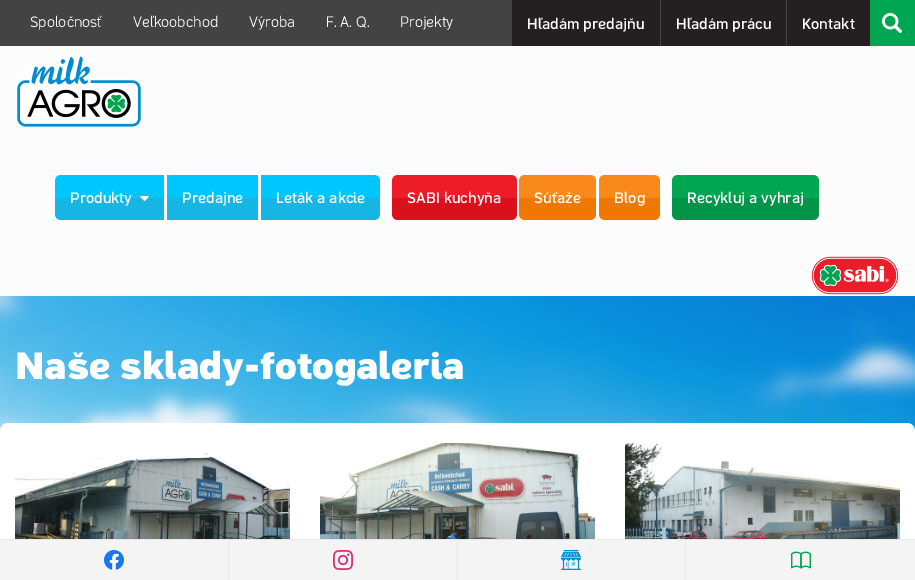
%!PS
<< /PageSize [915 580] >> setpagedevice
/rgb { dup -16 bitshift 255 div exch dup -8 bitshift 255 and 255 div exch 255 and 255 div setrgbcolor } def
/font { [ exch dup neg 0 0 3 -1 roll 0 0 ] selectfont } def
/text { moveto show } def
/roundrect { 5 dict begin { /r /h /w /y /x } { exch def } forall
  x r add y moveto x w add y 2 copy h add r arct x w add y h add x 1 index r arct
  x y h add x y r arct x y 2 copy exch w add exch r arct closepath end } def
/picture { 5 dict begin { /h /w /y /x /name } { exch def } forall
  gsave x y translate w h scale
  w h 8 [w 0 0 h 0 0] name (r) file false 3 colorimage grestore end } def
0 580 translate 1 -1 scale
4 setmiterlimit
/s1 { /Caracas-Light 16 font 16#FFFFFF rgb } def
/s2 { /Caracas-Regular 16 font 16#FFFFFF rgb } def
/s3 { /Caracas-Bold 40 font 16#FFFFFF rgb } def
16#FCFCFC rgb
0 0 915 580 rectfill
16#434343 rgb
0 0 512 46 rectfill
s1
(Spoločnosť) 30 27 text
(Veľkoobchod) 133 27 text
(Výroba) 249 27 text
(F. A. Q.) 326 27 text
(Projekty) 400 27 text
16#241F20 rgb
512 0 148 46 rectfill
16#434343 rgb
660 0 1 46 rectfill
s2
(Hľadám predajňu) 527 29 text
16#241F20 rgb
661 0 125 46 rectfill
16#434343 rgb
786 0 1 46 rectfill
s2
(Hľadám prácu) 676 29 text
16#241F20 rgb
787 0 83 46 rectfill
s2
(Kontakt) 802 29 text
16#00A651 rgb
870 0 45 46 rectfill
(pic1.raw) 882 13 20 20 picture
(pic2.raw) 17 56 124 71 picture
16#00C6FF rgb
61 175 moveto 164 175 lineto 164 198 lineto 55 198 lineto 55 181 lineto 55 177.5 57.5 175 61 175 curveto closepath fill
16#15B6E4 rgb
55 198 moveto 164 198 lineto 164 220 lineto 61 220 lineto 57.5 220 55 217.5 55 214 curveto closepath fill
s2
(Produkty) 70 203 text
(pic3.raw) 140 196 9 5 picture
16#00C6FF rgb
167 175 91 23 rectfill
16#15B6E4 rgb
167 198 91 22 rectfill
s2
(Predajne) 182 203 text
16#00C6FF rgb
261 175 moveto 374 175 lineto 377.5 175 380 177.5 380 181 curveto 380 198 lineto 261 198 lineto closepath fill
16#15B6E4 rgb
261 198 moveto 380 198 lineto 380 214 lineto 380 217.5 377.5 220 374 220 curveto 261 220 lineto closepath fill
s2
(Leták a akcie) 276 203 text
16#EC1C29 rgb
398 175 moveto 511 175 lineto 514.5 175 517 177.5 517 181 curveto 517 198 lineto 392 198 lineto 392 181 lineto 392 177.5 394.5 175 398 175 curveto closepath fill
16#DA101D rgb
392 198 moveto 517 198 lineto 517 214 lineto 517 217.5 514.5 220 511 220 curveto 398 220 lineto 394.5 220 392 217.5 392 214 curveto closepath fill
s2
(SABI kuchyňa) 407 203 text
16#F9891B rgb
525 175 moveto 590 175 lineto 593.5 175 596 177.5 596 181 curveto 596 198 lineto 519 198 lineto 519 181 lineto 519 177.5 521.5 175 525 175 curveto closepath fill
16#F07800 rgb
519 198 moveto 596 198 lineto 596 214 lineto 596 217.5 593.5 220 590 220 curveto 525 220 lineto 521.5 220 519 217.5 519 214 curveto closepath fill
s2
(Súťaže) 534 203 text
16#F9891B rgb
605 175 moveto 654 175 lineto 657.5 175 660 177.5 660 181 curveto 660 198 lineto 599 198 lineto 599 181 lineto 599 177.5 601.5 175 605 175 curveto closepath fill
16#F07800 rgb
599 198 moveto 660 198 lineto 660 214 lineto 660 217.5 657.5 220 654 220 curveto 605 220 lineto 601.5 220 599 217.5 599 214 curveto closepath fill
s2
(Blog) 614 203 text
16#00A651 rgb
678 175 moveto 813 175 lineto 816.5 175 819 177.5 819 181 curveto 819 198 lineto 672 198 lineto 672 181 lineto 672 177.5 674.5 175 678 175 curveto closepath fill
16#02954A rgb
672 198 moveto 819 198 lineto 819 214 lineto 819 217.5 816.5 220 813 220 curveto 678 220 lineto 674.5 220 672 217.5 672 214 curveto closepath fill
s2
(Recykluj a vyhraj) 687 203 text
(pic4.raw) 811 256 88 39 picture
(pic5.raw) 0 296 915 135 picture
s3
(Naše sklady-fotogaleria) 15 379 text
0 423 915 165 8 roundrect fill
(pic6.raw) 15 453 275 86 picture
(pic7.raw) 320 443 275 96 picture
(pic8.raw) 625 443 275 96 picture
16#F4F4F4 rgb
0 540 915 40 rectfill
16#E8E8E8 rgb
0 539 915 1 rectfill
228 540 1 40 rectfill
(pic9.raw) 104 550 20 20 picture
457 540 1 40 rectfill
(pic10.raw) 333 550 20 20 picture
685 540 1 40 rectfill
(pic11.raw) 561 550 20 20 picture
(pic12.raw) 791 551 20 18 picture
showpage
